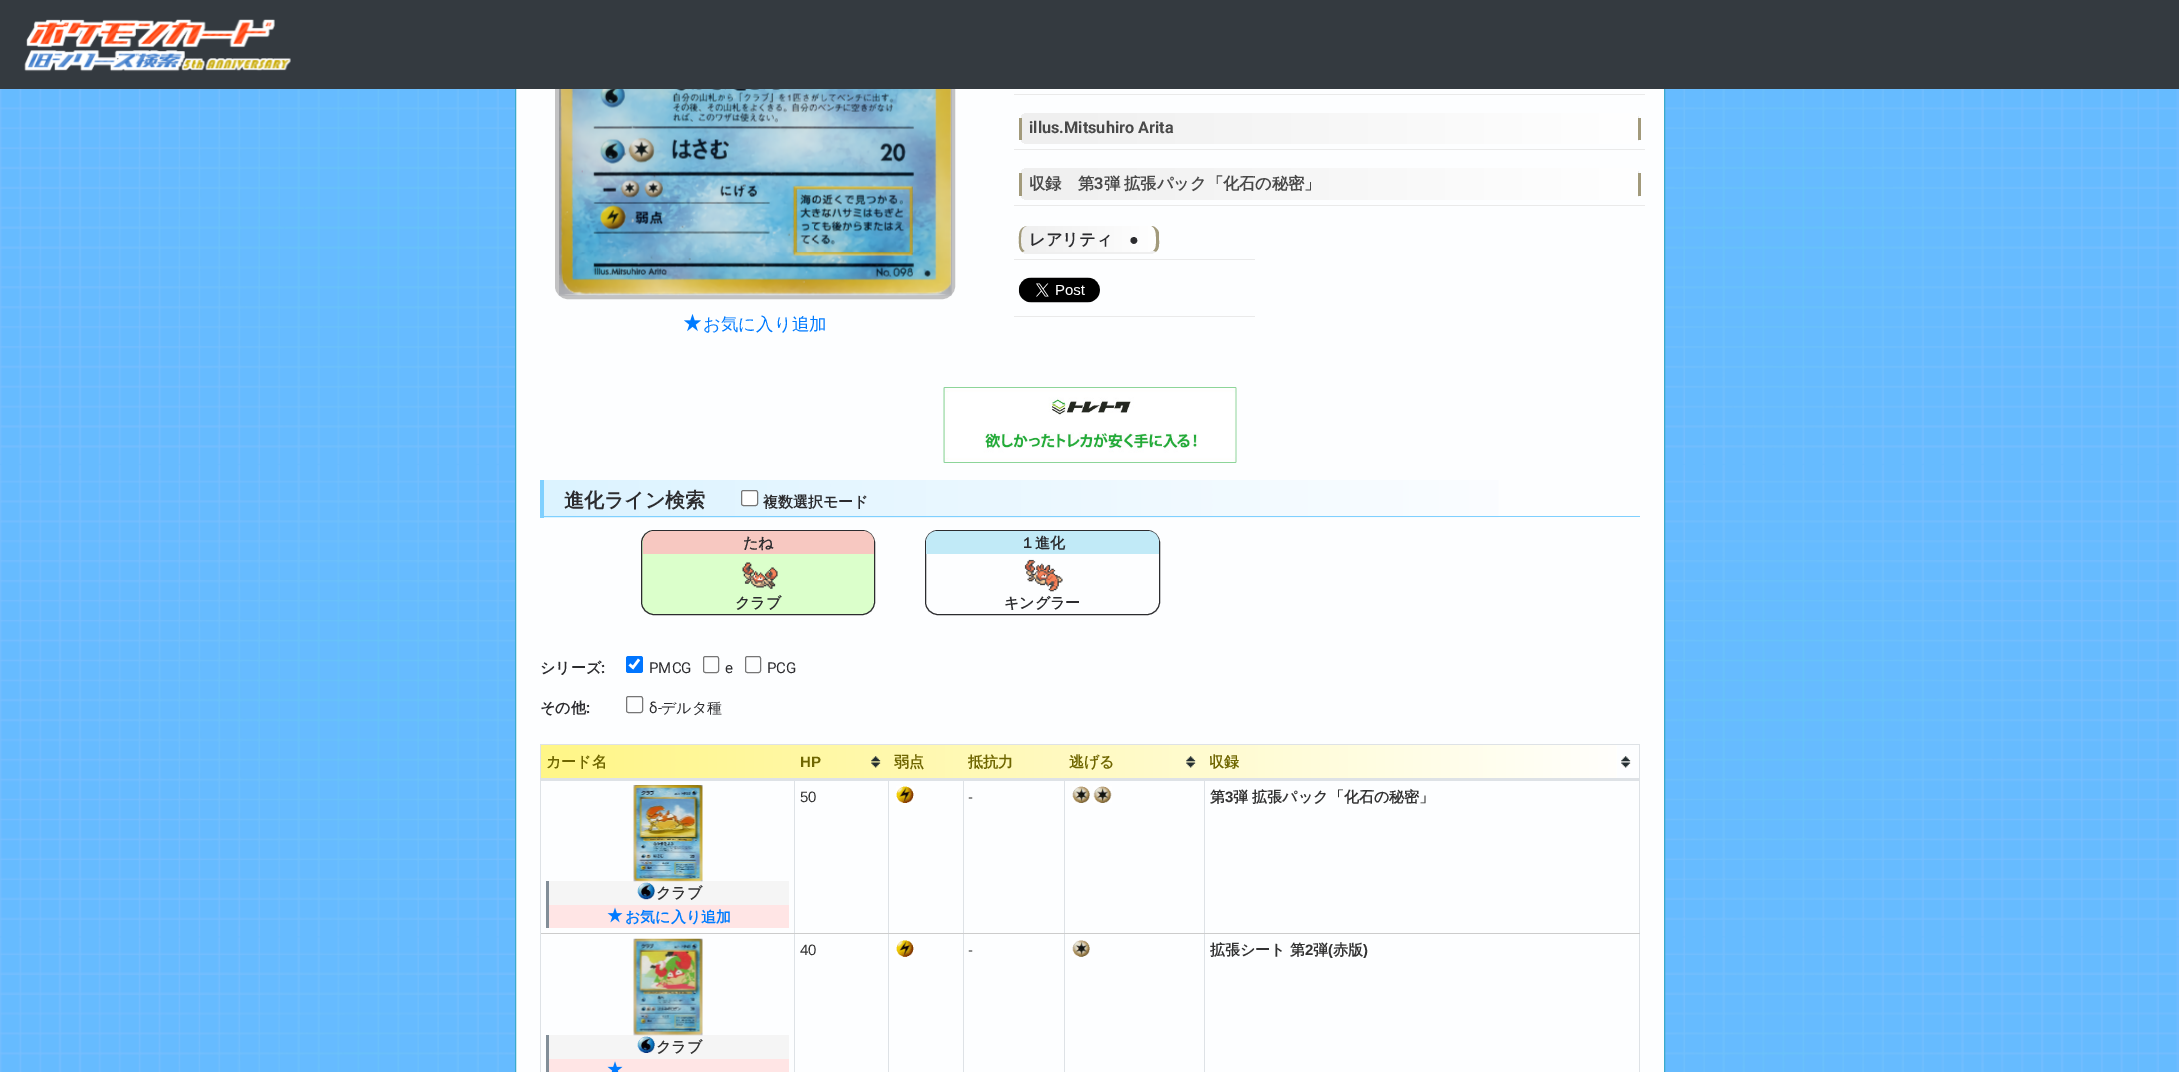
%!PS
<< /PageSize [2179 1072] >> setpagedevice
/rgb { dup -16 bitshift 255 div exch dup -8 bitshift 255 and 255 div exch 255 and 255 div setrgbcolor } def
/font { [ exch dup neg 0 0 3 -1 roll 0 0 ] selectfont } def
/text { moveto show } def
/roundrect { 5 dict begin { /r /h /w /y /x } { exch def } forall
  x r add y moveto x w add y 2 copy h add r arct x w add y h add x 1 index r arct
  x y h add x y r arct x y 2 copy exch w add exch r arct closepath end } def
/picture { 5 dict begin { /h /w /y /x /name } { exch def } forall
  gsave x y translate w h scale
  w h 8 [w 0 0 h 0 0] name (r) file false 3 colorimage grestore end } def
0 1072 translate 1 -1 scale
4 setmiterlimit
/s1 { /Roboto-Bold 16.25 font 16#494949 rgb } def
/s2 { /WenQuanYiZenHei-Bold 16.25 font 16#494949 rgb } def
/s3 { /WenQuanYiZenHei-Bold 16.25 font 16#2C2C2F rgb } def
/s4 { /LiberationSans-Bold 16.25 font 16#2C2C2F rgb } def
/s5 { /WenQuanYiZenHei-Medium 17.5 font 16#007BFF rgb } def
/s6 { /WenQuanYiZenHei-Bold 20 font 16#2C2C2F rgb } def
/s7 { /WenQuanYiZenHei-Bold 15 font 16#2C2C2F rgb } def
/s8 { /Roboto-Bold 15 font 16#2C2C2F rgb } def
/s9 { /Roboto-Regular 15 font 16#2C2C2F rgb } def
/s10 { /WenQuanYiZenHei-Medium 15 font 16#2C2C2F rgb } def
/s11 { /WenQuanYiZenHei-Bold 15 font 16#6F6600 rgb } def
/s12 { /LiberationSans-Bold 15 font 16#6F6600 rgb } def
/s13 { /LiberationSans-Regular 15 font 16#333333 rgb } def
/s14 { /WenQuanYiZenHei-Bold 15 font 16#333333 rgb } def
/s15 { /LiberationSans-Bold 15 font 16#333333 rgb } def
/s16 { /WenQuanYiZenHei-Bold 15 font 16#007BFF rgb } def
16#FFFFFF rgb
0 0 2179 1072 rectfill
(pic1.raw) 0 89 2179 983 picture
16#FDFEFF rgb
516 89 1148 983 rectfill
16#3AAACC rgb
515.5 -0.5 1149 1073 rectstroke
16#C2C2C3 rgb
4 setlinewidth
557 -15 396 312 11 roundrect stroke
16#343A40 rgb
0 0 2179 89 rectfill
(pic2.raw) 24 19 267 53 picture
16#EAEAEA rgb
1014 94 631 1 rectfill
1014 149 631 1 rectfill
gsave
1019 113 621 31 9 roundrect clip newpath
gsave 1021 113 moveto 1638 113 lineto 1638 144 lineto 1021 144 lineto closepath clip newpath
<< /ShadingType 2 /ColorSpace /DeviceRGB /Coords [1021 128 1638 128] /Extend [true true] /Function << /FunctionType 2 /Domain [0 1] /C0 [0.937 0.937 0.937] /C1 [1 1 1] /N 1 >> >> shfill grestore
gsave 1638 113 moveto 1639 113 lineto 1639 144 lineto 1638 144 lineto closepath clip newpath
<< /ShadingType 2 /ColorSpace /DeviceRGB /Coords [1638 128 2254 128] /Extend [true true] /Function << /FunctionType 2 /Domain [0 1] /C0 [0.937 0.937 0.937] /C1 [1 1 1] /N 1 >> >> shfill grestore
grestore
16#A29A7B rgb
1638 118 3 22 rectfill
1019 118 3 22 rectfill
s1
(illus.Mitsuhiro Arita) 1029 133 text
16#EAEAEA rgb
1014 205 631 1 rectfill
gsave
1019 168 621 32 9 roundrect clip newpath
gsave 1021 168 moveto 1638 168 lineto 1638 200 lineto 1021 200 lineto closepath clip newpath
<< /ShadingType 2 /ColorSpace /DeviceRGB /Coords [1021 184 1638 184] /Extend [true true] /Function << /FunctionType 2 /Domain [0 1] /C0 [0.937 0.937 0.937] /C1 [1 1 1] /N 1 >> >> shfill grestore
gsave 1638 168 moveto 1639 168 lineto 1639 200 lineto 1638 200 lineto closepath clip newpath
<< /ShadingType 2 /ColorSpace /DeviceRGB /Coords [1638 184 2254 184] /Extend [true true] /Function << /FunctionType 2 /Domain [0 1] /C0 [0.937 0.937 0.937] /C1 [1 1 1] /N 1 >> >> shfill grestore
grestore
16#A29A7B rgb
1638 173 3 23 rectfill
1019 173 3 23 rectfill
s2
(収録　第) 1029 189 text
s1
(3) 1094 189 text
/WenQuanYiZenHei-Bold 16.25 font
1104 189 moveto -1 0 32 (弾 拡張パック「化石の秘密」) widthshow
16#EAEAEA rgb
1014 259 241 1 rectfill
gsave
1019 226 140 28 9 roundrect clip newpath
gsave 1021 226 moveto 1156 226 lineto 1156 254 lineto 1021 254 lineto closepath clip newpath
<< /ShadingType 2 /ColorSpace /DeviceRGB /Coords [1021 239 1156 239] /Extend [true true] /Function << /FunctionType 2 /Domain [0 1] /C0 [0.937 0.937 0.937] /C1 [1 1 1] /N 1 >> >> shfill grestore
grestore
s3
(レアリティ) 1029 245 text
16#A29A7B rgb
1153 251 moveto 1156.5 248.5 1156 244 1156 240 curveto 1156 235.5 1156.5 228.5 1151.5 226 curveto 1154.5 226 1158.5 229.5 1159 233 curveto 1159 240 lineto 1159 245 1159.5 249 1155.5 252 curveto closepath fill
16#EFEFEF rgb
1024 251 moveto 1028 252 lineto 1150 252 lineto 1153 251 lineto 1156 252 lineto 1152 254 lineto 1026 254 lineto 1022 252 lineto closepath fill
16#A29A7B rgb
1026.5 226 moveto 1020.5 228 1021 235 1021 240 curveto 1021 244 1020.5 248.5 1024.5 251 curveto 1022.5 252 lineto 1018.5 249 1019 244.5 1019 240 curveto 1019 235.5 1018.5 230.5 1023 227.5 curveto closepath fill
s4
(●) 1129 245 text
16#EAEAEA rgb
1014 316 241 1 rectfill
(pic3.raw) 1018 277 82 26 picture
(pic4.raw) 559 89 393 207 picture
(pic5.raw) 684 314 17 18 picture
s5
(お気に入り追加) 703 330 text
(pic6.raw) 943 387 294 76 picture
gsave 544 480 moveto 1499 480 lineto 1499 518 lineto 544 518 lineto closepath clip newpath
<< /ShadingType 2 /ColorSpace /DeviceRGB /Coords [544 498 1640 498] /Extend [true true] /Function << /FunctionType 2 /Domain [0 1] /C0 [0.863 0.953 1] /C1 [1 1 1] /N 1 >> >> shfill grestore
16#80D0FF rgb
540 516 1100 1 rectfill
540 480 4 38 rectfill
s6
(進化ライン検索) 564 507 text
16#FFFFFF rgb
741.5 490.5 16 15 2 roundrect gsave fill grestore
16#767676 rgb
1 setlinewidth
stroke
s7
(複数選択モード) 763 507 text
16#DBFFCB rgb
641.5 530.5 233 84 12.5 roundrect gsave fill grestore
16#2C2C2F rgb
stroke
16#F7C8C1 rgb
654.5 531 moveto 862.5 531 lineto 869 531 874 536 874 542.5 curveto 874 554 lineto 643 554 lineto 643 542.5 lineto 643 536 648 531 654.5 531 curveto closepath fill
s7
(たね) 743 548 text
(pic7.raw) 742 562 36 27 picture
(クラブ) 735 608 text
925.5 530.5 234 84 12.5 roundrect stroke
16#C1EAF7 rgb
937.5 531 moveto 1147.5 531 lineto 1154 531 1159 536 1159 542.5 curveto 1159 554 lineto 926 554 lineto 926 542.5 lineto 926 536 931 531 937.5 531 curveto closepath fill
s7
(１進化) 1020 548 text
(pic8.raw) 1024 559 39 33 picture
(キングラー) 1004 608 text
(シリーズ) 540 673 text
s8
(:) 601 673 text
16#0075FF rgb
626 656 17 17 2.5 roundrect fill
16#FFFFFF rgb
2.6 setlinewidth
629.5 664.5 moveto 633 667.5 lineto 639 659.5 lineto stroke
s9
(PMCG) 649 673 text
16#767676 rgb
1 setlinewidth
703.5 656.5 15 16 2 roundrect stroke
s9
(e) 725 673 text
16#767676 rgb
745.5 656.5 15 16 2 roundrect stroke
s9
(PCG) 767 673 text
s7
(その他) 540 713 text
s8
(:) 586 713 text
16#767676 rgb
626.5 696.5 16 16 2 roundrect stroke
s9
(δ-) 649 713 text
s10
(デルタ種) 661 713 text
16#DEE2E6 rgb
540 744 1100 1 rectfill
1639 744 1 328 rectfill
540 744 1 328 rectfill
gsave 541 745 moveto 1617 745 lineto 1617 778 lineto 541 778 lineto closepath clip newpath
<< /ShadingType 2 /ColorSpace /DeviceRGB /Coords [541 762 1640 762] /Extend [true true] /Function << /FunctionType 2 /Domain [0 1] /C0 [1 0.965 0.529] /C1 [1 1 1] /N 1 >> >> shfill grestore
s11
(カード名) 546 767 text
(pic9.raw) 871 756 10 12 picture
s12
(HP) 800 767 text
s11
(弱点) 894 767 text
(抵抗力) 968 767 text
(pic10.raw) 1186 756 10 12 picture
(逃げる) 1069 767 text
(pic11.raw) 1621 756 10 12 picture
16#DEE2E6 rgb
1204 933 1 139 rectfill
16#CCCCCC rgb
1204 933 436 1 rectfill
16#DEE2E6 rgb
1204 779 1 155 rectfill
1064 933 1 139 rectfill
16#CCCCCC rgb
1064 933 141 1 rectfill
16#DEE2E6 rgb
1064 779 1 155 rectfill
963 933 1 139 rectfill
16#CCCCCC rgb
963 933 102 1 rectfill
16#DEE2E6 rgb
963 779 1 155 rectfill
888 933 1 139 rectfill
16#CCCCCC rgb
888 933 76 1 rectfill
16#DEE2E6 rgb
888 779 1 155 rectfill
794 933 1 139 rectfill
16#CCCCCC rgb
794 933 95 1 rectfill
16#DEE2E6 rgb
794 779 1 155 rectfill
540 778 1100 3 rectfill
s11
(収録) 1209 767 text
s13
(50) 800 802 text
(pic12.raw) 896 786 18 17 picture
(-) 968 802 text
(pic13.raw) 1072 786 18 17 picture
(pic14.raw) 1093 786 19 17 picture
s14
(第) 1210 802 text
s15
(3) 1225 802 text
s14
(弾 拡張パック「化石の秘密」) 1233 802 text
16#CCCCCC rgb
540 933 255 1 rectfill
16#DEE2E6 rgb
540 933 1 1 rectfill
16#F5F5F5 rgb
549 881 240 24 rectfill
(pic15.raw) 633 785 70 97 picture
16#828E98 rgb
546 881 3 47 rectfill
(pic16.raw) 637 882 18 18 picture
s14
(クラブ) 656 898 text
16#FFE5E5 rgb
549 905 240 23 rectfill
(pic17.raw) 607 907 16 16 picture
s16
(お気に入り追加) 625 922 text
s13
(40) 800 955 text
(pic18.raw) 896 940 18 17 picture
(-) 968 955 text
(pic19.raw) 1072 940 18 17 picture
s14
(拡張シート 第) 1210 955 text
s15
(2) 1305 955 text
s14
(弾) 1313 955 text
s15
(\() 1328 955 text
s14
(赤版) 1333 955 text
s15
(\)) 1363 955 text
16#F5F5F5 rgb
549 1035 240 24 rectfill
(pic20.raw) 633 938 70 98 picture
16#828E98 rgb
546 1035 3 37 rectfill
(pic21.raw) 637 1036 18 17 picture
s14
(クラブ) 656 1052 text
16#FFE5E5 rgb
549 1059 240 13 rectfill
(pic22.raw) 607 1061 16 11 picture
showpage
